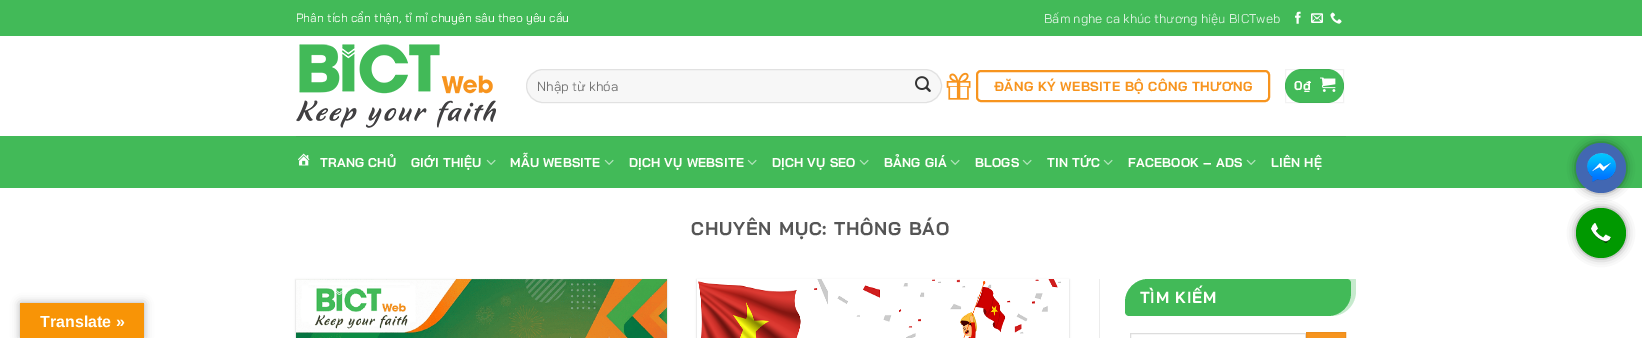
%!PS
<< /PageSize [1642 338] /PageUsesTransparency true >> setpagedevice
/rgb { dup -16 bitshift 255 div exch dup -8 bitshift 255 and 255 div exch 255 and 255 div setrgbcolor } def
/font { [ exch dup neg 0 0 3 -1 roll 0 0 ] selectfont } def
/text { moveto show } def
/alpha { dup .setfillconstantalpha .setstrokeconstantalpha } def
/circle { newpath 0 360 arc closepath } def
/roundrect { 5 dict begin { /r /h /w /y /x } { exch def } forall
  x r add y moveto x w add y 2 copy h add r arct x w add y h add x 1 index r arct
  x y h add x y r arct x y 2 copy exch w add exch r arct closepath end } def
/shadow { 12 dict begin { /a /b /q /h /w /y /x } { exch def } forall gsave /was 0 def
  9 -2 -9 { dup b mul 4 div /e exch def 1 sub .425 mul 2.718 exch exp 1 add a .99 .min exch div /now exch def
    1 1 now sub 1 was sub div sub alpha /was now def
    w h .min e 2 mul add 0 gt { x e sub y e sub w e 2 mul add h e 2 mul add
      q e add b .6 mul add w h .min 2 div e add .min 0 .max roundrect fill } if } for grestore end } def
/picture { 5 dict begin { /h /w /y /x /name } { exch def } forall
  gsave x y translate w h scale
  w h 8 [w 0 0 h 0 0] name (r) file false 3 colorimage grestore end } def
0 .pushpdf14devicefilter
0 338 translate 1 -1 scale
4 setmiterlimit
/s1 { /BaiJamjuree-Regular 12 font 16#FFFFFA rgb } def
/s2 { /BaiJamjuree-Regular 12.75 font 16#D9F1DE rgb } def
/s3 { /BaiJamjuree-Regular 13.2 font 16#757575 rgb } def
/s4 { /BaiJamjuree-Bold 12.75 font 16#FFFFFA rgb } def
/s5 { /LiberationSans-Bold 16 font 16#FFFFFA rgb } def
16#FFFFFF rgb
0 0 1642 338 rectfill
16#42BA58 rgb
0 0 1642 36 rectfill
s1
(Phân tích cẩn thận, tỉ mỉ chuyên sâu theo yêu cầu) 296 22 text
s2
(Bấm nghe ca khúc thương hiệu BICTweb) 1044 23 text
(pic1.raw) 1295 11 6 13 picture
(pic2.raw) 1311 13 12 10 picture
(pic3.raw) 1330 12 12 12 picture
(pic4.raw) 296 44 200 84 picture
16#F7F7F7 rgb
526 69 416 34 17 roundrect fill
0.09 alpha
16#000000 rgb
526.5 69.5 415 33 16.5 roundrect stroke
1 alpha
s3
(Nhập từ khóa) 537 91 text
(pic5.raw) 915 76 16 16 picture
(pic6.raw) 946 72 25 28 picture
16#F7941E rgb
2 setlinewidth
977 71 292 30 4 roundrect stroke
/BaiJamjuree-Bold 13.2 font
994 91 moveto 0.4 0 (ĐĂNG KÝ WEBSITE BỘ CÔNG THƯƠNG) ashow
16#42BA58 rgb
1285 69 59 34 17 roundrect fill
0.05 alpha
16#000000 rgb
1 setlinewidth
1285.5 69.5 58 33 rectstroke
1 alpha
s4
(0₫) 1294 90 text
(pic7.raw) 1320 77 16 15 picture
16#42BA58 rgb
0 136 1642 52 rectfill
16#41AD54 rgb
296 136 1050 1 rectfill
(pic8.raw) 298 153 12 13 picture
16#FFFFFA rgb
320 167 moveto 0.25 0 (TRANG CHỦ) ashow
411 167 moveto 0.25 0 (GIỚI THIỆU) ashow
(pic9.raw) 486 159 10 6 picture
510 167 moveto 0.25 0 (MẪU WEBSITE) ashow
(pic9.raw) 604 159 10 6 picture
629 167 moveto 0.25 0 (DỊCH VỤ WEBSITE) ashow
(pic9.raw) 747 159 10 6 picture
772 167 moveto 0.25 0 (DỊCH VỤ SEO) ashow
(pic9.raw) 859 159 10 6 picture
884 167 moveto 0.25 0 (BẢNG GIÁ) ashow
(pic9.raw) 950 159 10 6 picture
975 167 moveto 0.25 0 (BLOGS) ashow
(pic9.raw) 1022 159 10 6 picture
1047 167 moveto 0.25 0 (TIN TỨC) ashow
(pic9.raw) 1103 159 10 6 picture
1128 167 moveto 0.25 0 (FACEBOOK – ADS) ashow
(pic9.raw) 1246 159 10 6 picture
1271 167 moveto 0.25 0 (LIÊN HỆ) ashow
/BaiJamjuree-Bold 18.4 font
16#555555 rgb
691 235 moveto 0.9 0 (CHUYÊN MỤC: THÔNG BÁO) ashow
16#000000 rgb
296 280 371 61 0 1 0.24 shadow
(pic10.raw) 296 279 371 59 picture
gsave
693 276 moveto 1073 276 lineto 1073 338 lineto 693 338 lineto closepath 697 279 moveto 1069 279 lineto 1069 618 lineto 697 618 lineto closepath eoclip newpath
697 280 372 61 0 1 0.24 shadow
grestore
(pic11.raw) 698 279 363 59 picture
16#ECECEC rgb
1099 279 1 59 rectfill
16#42BA58 rgb
1148 279 moveto 1347 279 lineto 1349 279 1351 281 1351 283 curveto 1351 293 lineto 1351 305.5 1340.5 316 1328 316 curveto 1129 316 lineto 1127 316 1125 314 1125 312 curveto 1125 302 lineto 1125 289.5 1135.5 279 1148 279 curveto closepath fill
0.3 alpha
1155 279 moveto 1355 279 lineto 1355.5 279 1356 279.5 1356 280 curveto 1356 291 lineto 1356 305 1345 316 1331 316 curveto 1131 316 lineto 1130.5 316 1130 315.5 1130 315 curveto 1130 304 lineto 1130 290 1141 279 1155 279 curveto closepath fill
/BaiJamjuree-Bold 16 font
1 alpha
16#FFFFFA rgb
1140 303 moveto 0.75 0 (TÌM KIẾM) ashow
16#DDDDDD rgb
1130.5 333.5 175 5 rectstroke
16#F7941E rgb
1306.5 332.5 moveto 1345.5 332.5 lineto 1345.5 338.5 lineto 1306.5 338.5 lineto closepath gsave fill grestore
16#EB8D1D rgb
stroke
16#000000 rgb
1578 145 46 46 23 5 0.7 shadow
16#4267B2 rgb
1601 168 25 circle fill
(pic12.raw) 1587 153 29 29 picture
16#000000 rgb
1578 210 46 46 23 5 0.7 shadow
16#009900 rgb
1601 233 25 circle fill
(pic13.raw) 1591 223 20 20 picture
16#000000 rgb
20 303 124 35 0 4.5 0.3 shadow
16#F89406 rgb
20 303 124 35 rectfill
s5
(Translate ») 40 327 text
.poppdf14devicefilter showpage
